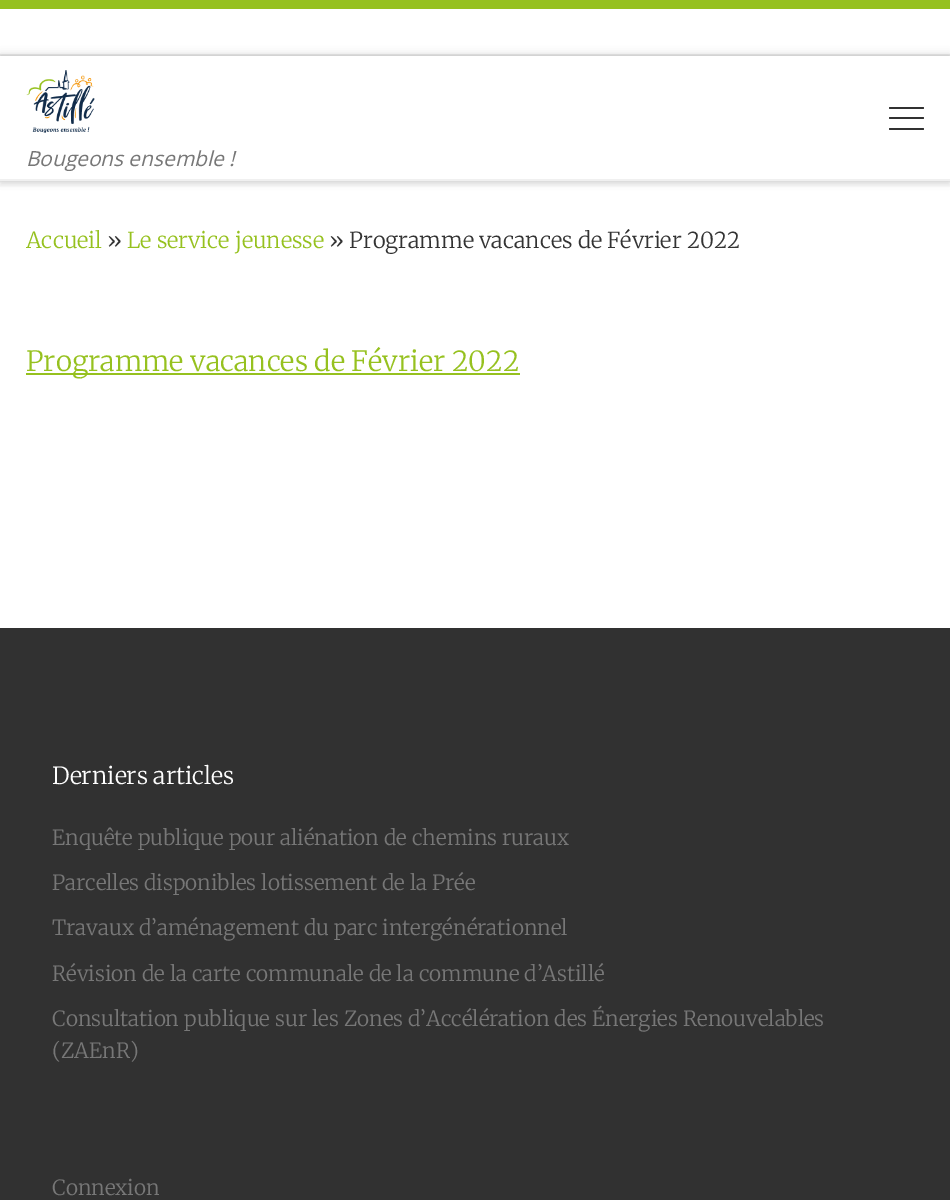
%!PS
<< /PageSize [950 1200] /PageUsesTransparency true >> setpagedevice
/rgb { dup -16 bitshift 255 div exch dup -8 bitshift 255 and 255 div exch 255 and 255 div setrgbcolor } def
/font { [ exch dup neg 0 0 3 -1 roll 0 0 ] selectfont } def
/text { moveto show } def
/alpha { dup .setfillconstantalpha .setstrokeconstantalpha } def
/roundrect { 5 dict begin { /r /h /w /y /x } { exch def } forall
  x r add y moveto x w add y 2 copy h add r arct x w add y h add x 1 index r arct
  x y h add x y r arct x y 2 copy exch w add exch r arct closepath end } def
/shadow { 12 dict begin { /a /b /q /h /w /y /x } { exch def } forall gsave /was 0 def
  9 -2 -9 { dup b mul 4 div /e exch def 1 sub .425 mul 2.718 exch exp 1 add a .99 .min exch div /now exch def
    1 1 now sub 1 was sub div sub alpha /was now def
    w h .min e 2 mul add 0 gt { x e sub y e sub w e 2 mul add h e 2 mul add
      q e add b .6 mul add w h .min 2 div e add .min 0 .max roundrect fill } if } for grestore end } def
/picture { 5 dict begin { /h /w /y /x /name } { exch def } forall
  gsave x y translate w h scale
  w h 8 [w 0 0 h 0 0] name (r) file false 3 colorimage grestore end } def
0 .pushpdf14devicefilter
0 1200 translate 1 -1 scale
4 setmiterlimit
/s1 { /OpenSans-Italic 20.85 font 16#777777 rgb } def
/s2 { /Merriweather-Light 22 font 16#96C11F rgb } def
/s3 { /Merriweather-Light 22 font 16#333333 rgb } def
/s4 { /Merriweather-Light 27.75 font 16#96C11F rgb } def
/s5 { /Merriweather-Light 23.5 font 16#FFFFFF rgb } def
/s6 { /Merriweather-Light 20.85 font 16#777777 rgb } def
16#FFFFFF rgb
0 0 950 1200 rectfill
gsave
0 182 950 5 rectclip
16#666666 rgb
0 4 950 182 0 2 0.08 shadow
grestore
16#96C11F rgb
0 0 950 9 rectfill
16#ECECEC rgb
0 54 950 2 rectfill
16#EFEFEF rgb
0 181 950 1 rectfill
gsave
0 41 moveto 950 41 lineto 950 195 lineto 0 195 lineto closepath 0 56 moveto 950 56 lineto 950 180 lineto 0 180 lineto closepath eoclip newpath
16#000000 rgb
0 56 950 124 0 4.5 0.2 shadow
grestore
16#313131 rgb
889 107 35 2 1 roundrect fill
889 117 35 2 1 roundrect fill
889 128 35 2 1 roundrect fill
(pic1.raw) 26 70 69 63 picture
s1
(Bougeons ensemble !) 26 166 text
16#F0F0F0 rgb
0 179 950 2 rectfill
s2
(Accueil) 26 248 text
s3
(») 107 248 text
s2
(Le service jeunesse) 127 248 text
s3
(» Programme vacances de Février 2022) 329 248 text
16#96C11F rgb
26 373 494 2 rectfill
s4
(Programme vacances de Février 2022) 26 371 text
16#313131 rgb
0 628 950 572 rectfill
s5
(Derniers articles) 52 784 text
s6
(Enquête publique pour aliénation de chemins ruraux) 52 845 text
(Parcelles disponibles lotissement de la Prée) 52 890 text
(Travaux d’aménagement du parc intergénérationnel) 52 935 text
(Révision de la carte communale de la commune d’Astillé) 52 981 text
(Consultation publique sur les Zones d’Accélération des Énergies Renouvelables) 52 1026 text
(\(ZAEnR\)) 52 1058 text
(Connexion) 52 1195 text
.poppdf14devicefilter showpage
